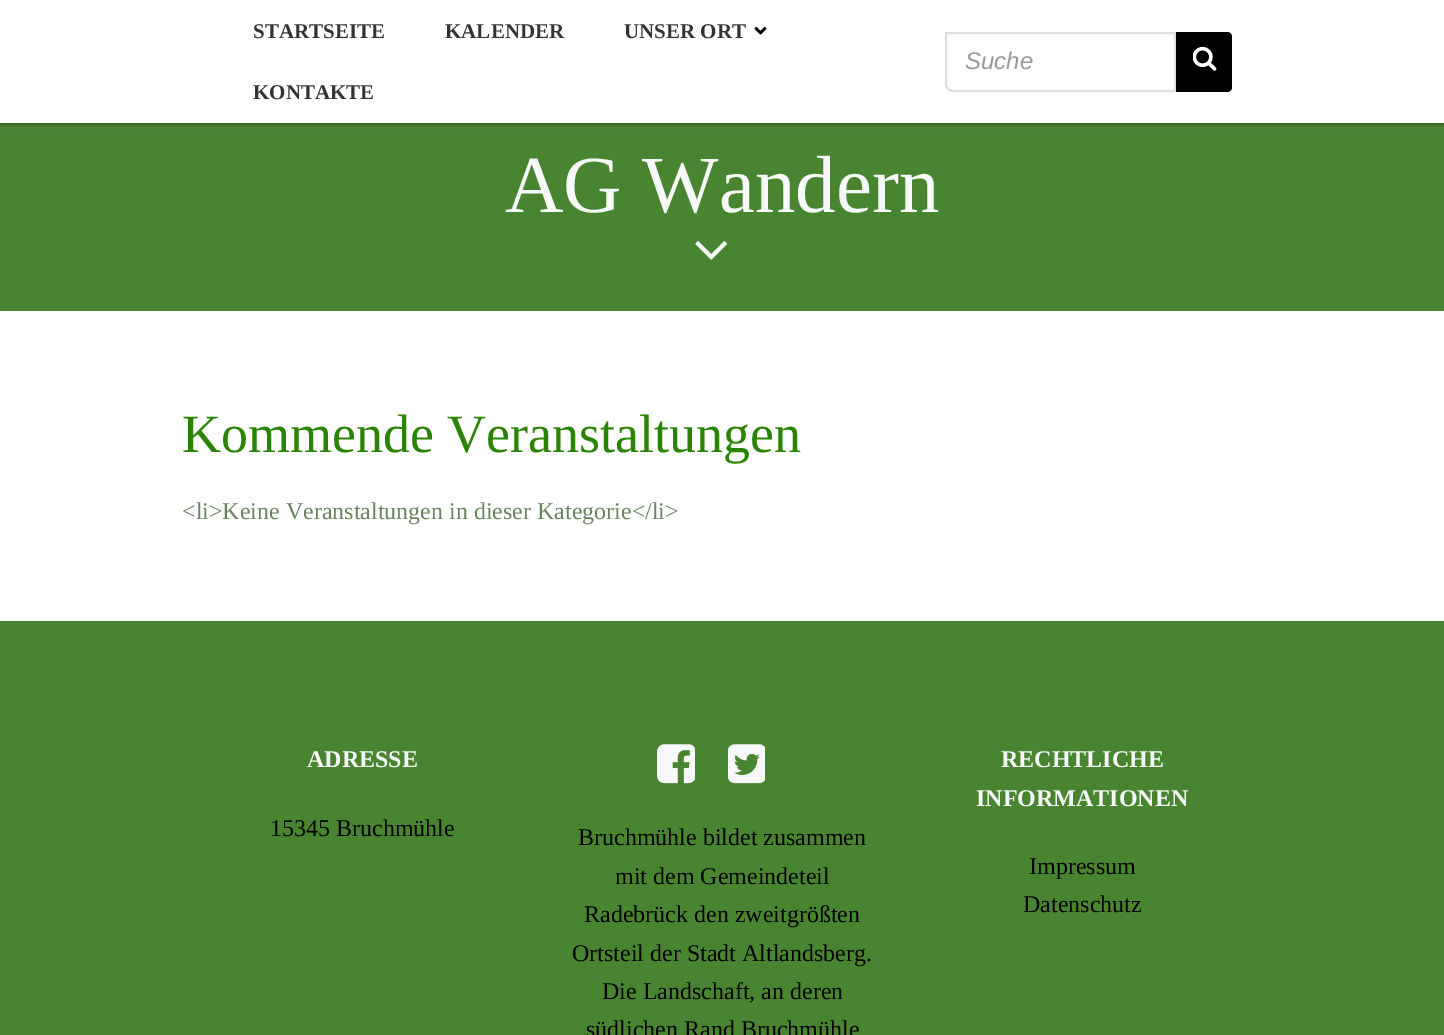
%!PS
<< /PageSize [1444 1035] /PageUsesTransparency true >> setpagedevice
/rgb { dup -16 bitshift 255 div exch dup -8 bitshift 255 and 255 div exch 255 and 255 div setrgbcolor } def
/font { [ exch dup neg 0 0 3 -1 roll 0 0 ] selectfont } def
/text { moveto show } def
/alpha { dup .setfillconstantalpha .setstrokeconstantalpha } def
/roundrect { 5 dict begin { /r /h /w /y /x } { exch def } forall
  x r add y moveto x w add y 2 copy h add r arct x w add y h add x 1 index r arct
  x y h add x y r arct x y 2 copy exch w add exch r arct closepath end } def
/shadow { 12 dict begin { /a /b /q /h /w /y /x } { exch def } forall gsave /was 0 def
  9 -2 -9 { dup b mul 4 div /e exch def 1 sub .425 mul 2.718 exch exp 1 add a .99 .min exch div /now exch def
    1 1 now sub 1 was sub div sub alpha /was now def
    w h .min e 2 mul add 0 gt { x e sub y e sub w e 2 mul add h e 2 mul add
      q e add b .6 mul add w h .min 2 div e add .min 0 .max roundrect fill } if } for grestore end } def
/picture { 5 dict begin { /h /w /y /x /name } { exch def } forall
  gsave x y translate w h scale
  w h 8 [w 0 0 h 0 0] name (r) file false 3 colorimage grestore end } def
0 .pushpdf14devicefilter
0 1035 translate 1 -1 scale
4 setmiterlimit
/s1 { /LiberationSerif-Bold 21 font 16#333333 rgb } def
/s2 { /LiberationSans-Italic 24 font 16#999999 rgb } def
/s3 { /LiberationSerif-Regular 81 font 16#F6F8FA rgb } def
/s4 { /LiberationSerif-Regular 54 font 16#2A8404 rgb } def
/s5 { /LiberationSerif-Regular 24 font 16#68845C rgb } def
/s6 { /LiberationSerif-Bold 24 font 16#F6F8FA rgb } def
/s7 { /LiberationSerif-Regular 24 font 16#000000 rgb } def
16#FFFFFF rgb
0 0 1444 1035 rectfill
16#498430 rgb
0 123 1444 188 rectfill
16#000000 rgb
0 0 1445 123 0 3 0.5 shadow
16#FFFFFF rgb
0 0 1444 123 rectfill
s1
(STARTSEITE) 253 38 text
(KALENDER) 445 38 text
(UNSER ORT) 624 38 text
(pic1.raw) 754 26 13 9 picture
(KONTAKTE) 253 99 text
16#DEDEDE rgb
2 setlinewidth
946 33 moveto 1175 33 lineto 1175 91 lineto 953 91 lineto 949 91 946 88 946 84 curveto closepath stroke
s2
(Suche) 965 69 text
16#000000 rgb
1176 32 moveto 1227 32 lineto 1230 32 1232 34 1232 37 curveto 1232 87 lineto 1232 90 1230 92 1227 92 curveto 1176 92 lineto closepath fill
(pic2.raw) 1193 46 24 25 picture
s3
(AG Wandern) 505 212 text
(pic3.raw) 695 241 32 19 picture
s4
(Kommende Veranstaltungen) 182 452 text
s5
(<li>Keine Veranstaltungen in dieser Kategorie</li>) 182 519 text
16#498430 rgb
0 621 1444 414 rectfill
s6
(ADRESSE) 307 767 text
s7
(15345 Bruchmühle) 270 836 text
(pic4.raw) 657 744 38 40 picture
(pic5.raw) 728 744 37 40 picture
(Bruchmühle bildet zusammen) 578 845 text
(mit dem Gemeindeteil) 615 884 text
(Radebrück den zweitgrößten) 584 922 text
(Ortsteil der Stadt Altlandsberg.) 572 961 text
(Die Landschaft, an deren) 602 999 text
(südlichen Rand Bruchmühle) 586 1037 text
s6
(RECHTLICHE) 1001 767 text
(INFORMATIONEN) 976 806 text
s7
(Impressum) 1029 874 text
(Datenschutz) 1023 912 text
.poppdf14devicefilter showpage
